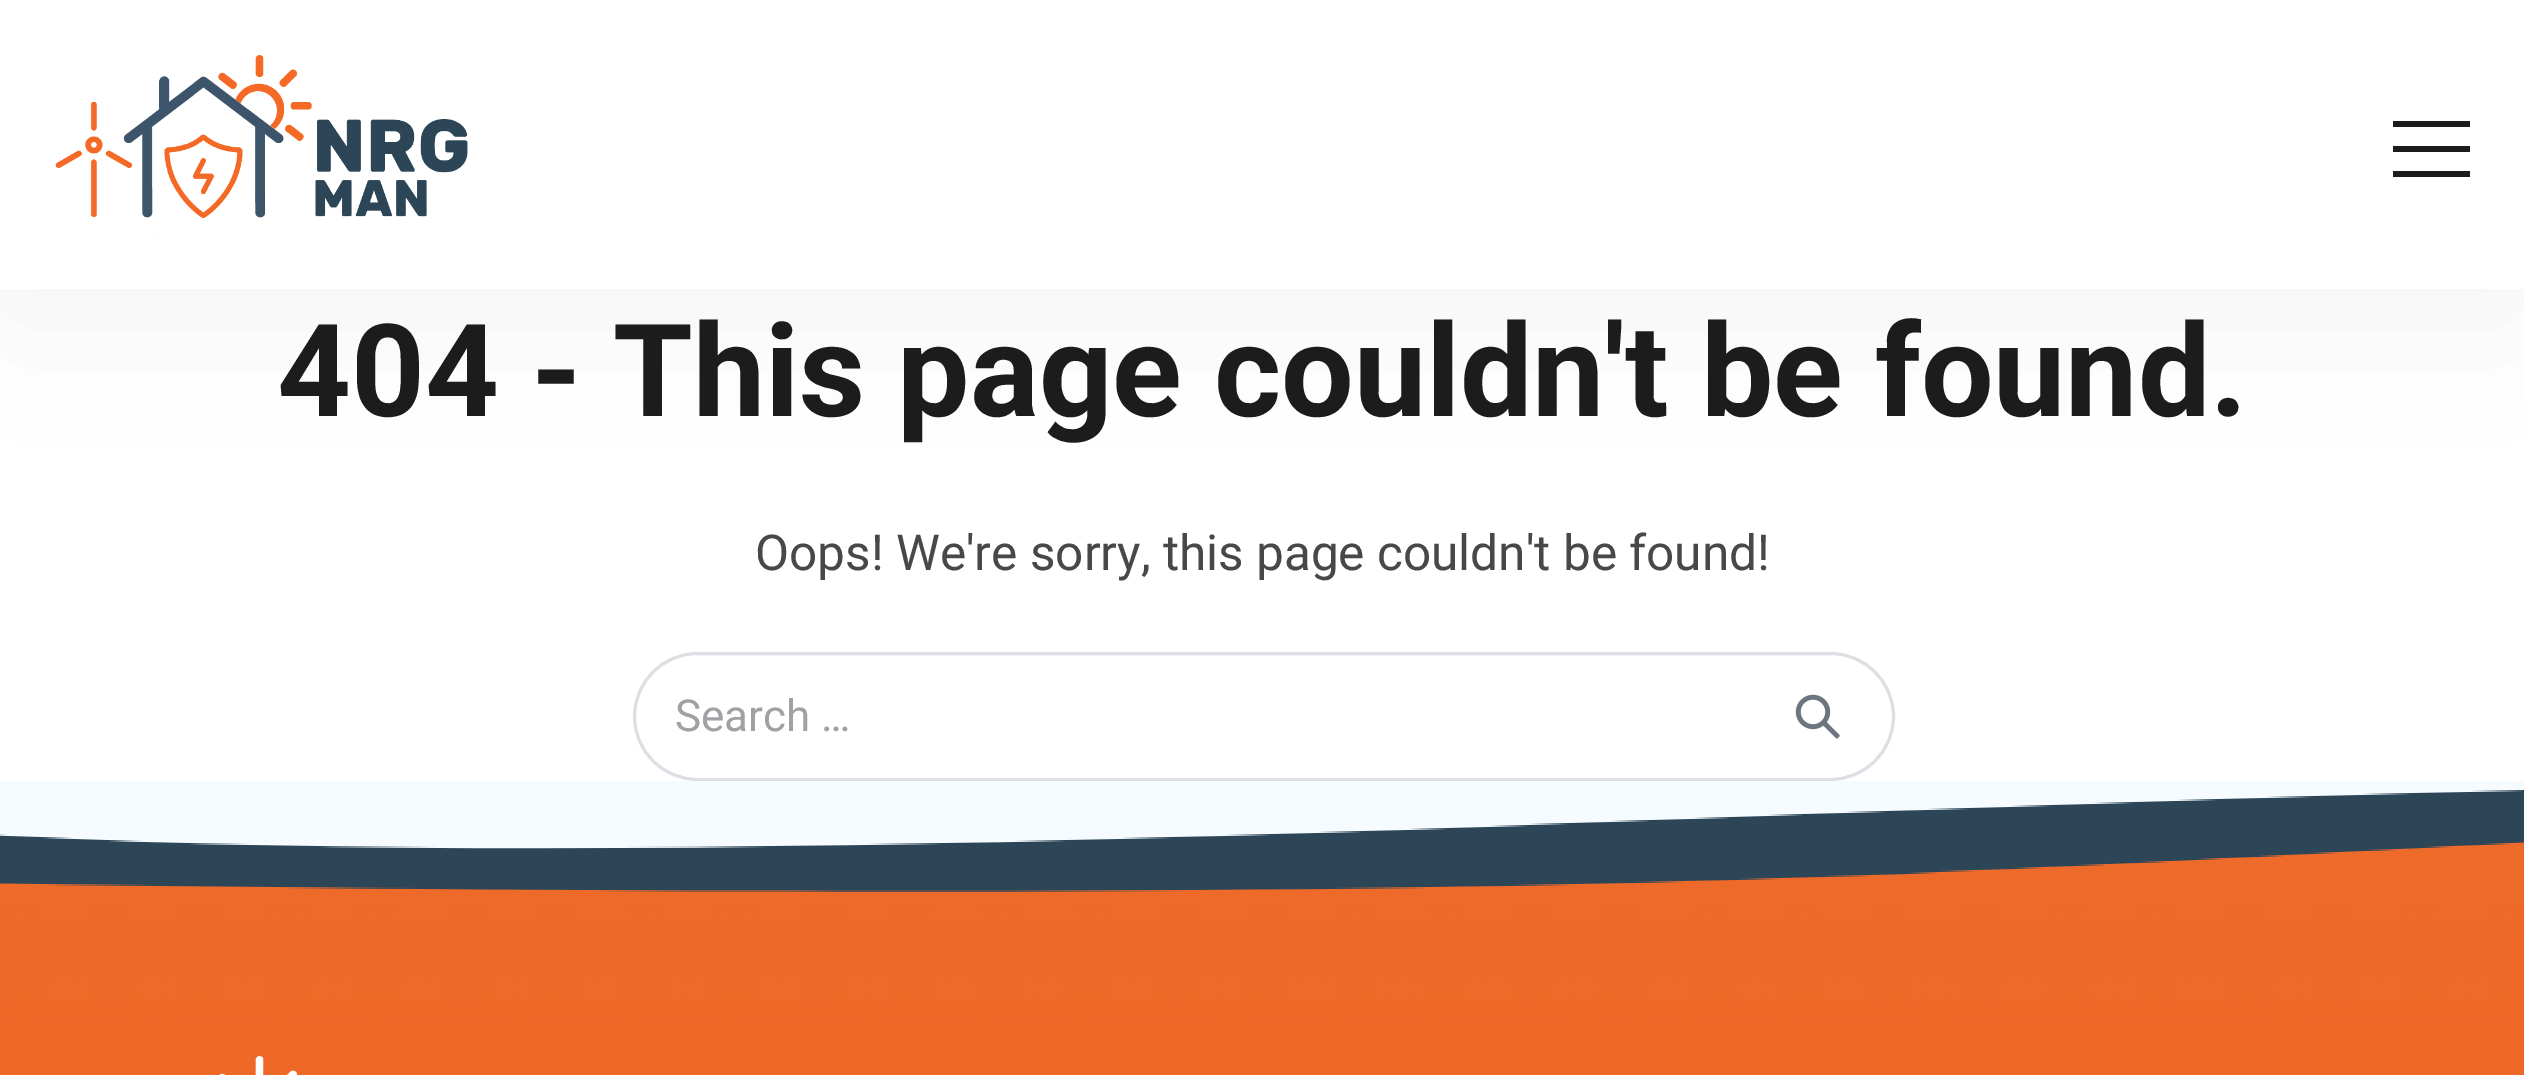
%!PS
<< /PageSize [2524 1075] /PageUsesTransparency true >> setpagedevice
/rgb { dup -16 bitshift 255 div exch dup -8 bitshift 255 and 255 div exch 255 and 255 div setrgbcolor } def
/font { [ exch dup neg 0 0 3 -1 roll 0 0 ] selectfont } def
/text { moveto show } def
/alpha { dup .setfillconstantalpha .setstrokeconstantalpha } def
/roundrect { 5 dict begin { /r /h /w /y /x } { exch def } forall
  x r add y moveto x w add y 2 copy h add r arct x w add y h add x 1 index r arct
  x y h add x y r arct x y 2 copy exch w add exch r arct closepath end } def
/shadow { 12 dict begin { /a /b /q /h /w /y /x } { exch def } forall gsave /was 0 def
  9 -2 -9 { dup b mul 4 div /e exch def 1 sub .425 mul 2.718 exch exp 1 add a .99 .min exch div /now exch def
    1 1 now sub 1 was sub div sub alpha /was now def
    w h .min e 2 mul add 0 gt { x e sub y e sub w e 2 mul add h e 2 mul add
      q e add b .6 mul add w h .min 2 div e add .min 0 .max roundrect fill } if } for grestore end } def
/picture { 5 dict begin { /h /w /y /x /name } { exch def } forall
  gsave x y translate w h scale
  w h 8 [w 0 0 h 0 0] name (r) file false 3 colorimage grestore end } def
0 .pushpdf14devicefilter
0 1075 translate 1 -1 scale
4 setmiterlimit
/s1 { /Roboto-Bold 128.75 font 16#1C1C1C rgb } def
/s2 { /Roboto-Regular 49.5 font 16#484848 rgb } def
/s3 { /Roboto-Regular 44 font 16#9FA1A4 rgb } def
16#FFFFFF rgb
0 0 2524 1075 rectfill
16#2A2A2A rgb
6 36 2513 278 0 75.5 0.06 shadow
16#FFFFFF rgb
0 0 2524 289 rectfill
(pic1.raw) 55 55 413 179 picture
16#1C1C1C rgb
2393 121 77 6 rectfill
2393 146 77 6 rectfill
2393 171 77 6 rectfill
s1
(404 - This page couldn't be found.) 277 416 text
s2
(Oops! We're sorry, this page couldn't be found!) 755 570 text
16#DEDEE5 rgb
3 setlinewidth
634.5 653.5 1259 126 63 roundrect stroke
s3
(Search …) 675 731 text
(pic2.raw) 1795 694 45 45 picture
16#F6FBFF rgb
0 781 2524 68 rectfill
(pic3.raw) 0 790 2524 285 picture
(pic4.raw) 219 1056 79 19 picture
.poppdf14devicefilter showpage
